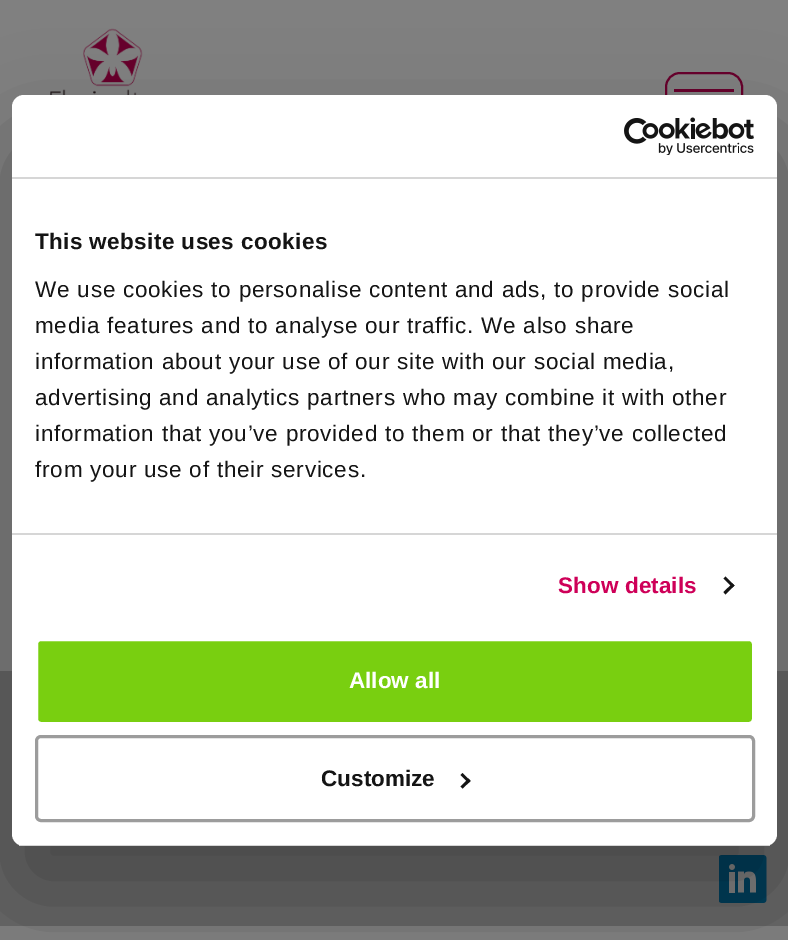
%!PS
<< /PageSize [788 940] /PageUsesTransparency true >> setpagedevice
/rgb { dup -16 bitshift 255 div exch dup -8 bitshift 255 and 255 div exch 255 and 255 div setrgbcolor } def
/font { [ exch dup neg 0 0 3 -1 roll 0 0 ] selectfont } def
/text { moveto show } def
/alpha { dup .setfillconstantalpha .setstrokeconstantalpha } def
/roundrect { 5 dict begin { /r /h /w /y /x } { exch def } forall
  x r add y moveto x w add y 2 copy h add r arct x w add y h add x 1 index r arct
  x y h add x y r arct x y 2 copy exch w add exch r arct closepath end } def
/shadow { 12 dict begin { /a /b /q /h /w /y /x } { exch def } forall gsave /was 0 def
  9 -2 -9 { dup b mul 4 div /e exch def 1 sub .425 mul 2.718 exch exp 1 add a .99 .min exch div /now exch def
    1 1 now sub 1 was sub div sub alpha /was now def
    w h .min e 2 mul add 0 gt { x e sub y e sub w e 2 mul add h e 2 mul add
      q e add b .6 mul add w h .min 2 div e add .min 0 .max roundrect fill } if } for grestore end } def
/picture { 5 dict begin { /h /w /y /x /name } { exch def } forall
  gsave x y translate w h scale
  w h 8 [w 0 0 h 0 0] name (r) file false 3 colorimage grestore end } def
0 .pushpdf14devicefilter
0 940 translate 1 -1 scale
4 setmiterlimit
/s1 { /LiberationSans-Bold 22.5 font 16#FFFFFF rgb } def
/s2 { /LiberationSans-Bold 22.5 font 16#141414 rgb } def
16#808080 rgb
0 0 788 940 rectfill
(pic1.raw) 50 28 93 67 picture
16#67002C rgb
2 setlinewidth
666 73 76 64 14 roundrect stroke
674 89 60 3 rectfill
16#666666 rgb
0 671 788 255 rectfill
(pic3.raw) 719 855 48 48 picture
16#000000 rgb
12 143 765 751 12 51 0.3 shadow
16#FFFFFF rgb
12 95 765 751 12 roundrect fill
16#D6D6D6 rgb
12 177 765 2 rectfill
(pic2.raw) 624 117 130 38 picture
12 533 765 2 rectfill
/LiberationSans-Bold 22.5 font
16#141414 rgb
35 249 moveto 0.4 0 (This website uses cookies) ashow
/LiberationSans-Regular 22.5 font
35 297 moveto 0.75 0 (We use cookies to personalise content and ads, to provide social) ashow
35 333 moveto 0.75 0 (media features and to analyse our traffic. We also share) ashow
35 369 moveto 0.75 0 (information about your use of our site with our social media,) ashow
35 405 moveto 0.75 0 (advertising and analytics partners who may combine it with other) ashow
35 441 moveto 0.75 0 (information that you’ve provided to them or that they’ve collected) ashow
35 477 moveto 0.75 0 (from your use of their services.) ashow
/LiberationSans-Bold 22.5 font
16#CE0058 rgb
558 593 moveto 0.1 0 (Show details) ashow
16#141414 rgb
725.5 576.5 moveto 734.5 585.5 lineto 732.5 587.5 lineto 723.5 578.5 lineto closepath fill
732.5 583.5 moveto 734.5 585.5 lineto 725.5 594.5 lineto 723.5 592 lineto closepath fill
gsave
12 95 765 751 12 roundrect clip newpath
16#D6D6D6 rgb
12 845 765 1 rectfill
grestore
16#79CF10 rgb
36.5 639.5 717 84 4.5 roundrect gsave fill grestore
16#FFFFFF rgb
3 setlinewidth
stroke
(Allow all) 349 688 text
16#9C9C9C rgb
36.5 736.5 717 84 4.5 roundrect stroke
s2
(Customize) 321 786 text
462.5 773 moveto 470.5 781 lineto 468.5 783 lineto 460.5 775 lineto closepath fill
468.5 778.5 moveto 470.5 781 lineto 462.5 788.5 lineto 460.5 786.5 lineto closepath fill
.poppdf14devicefilter showpage
